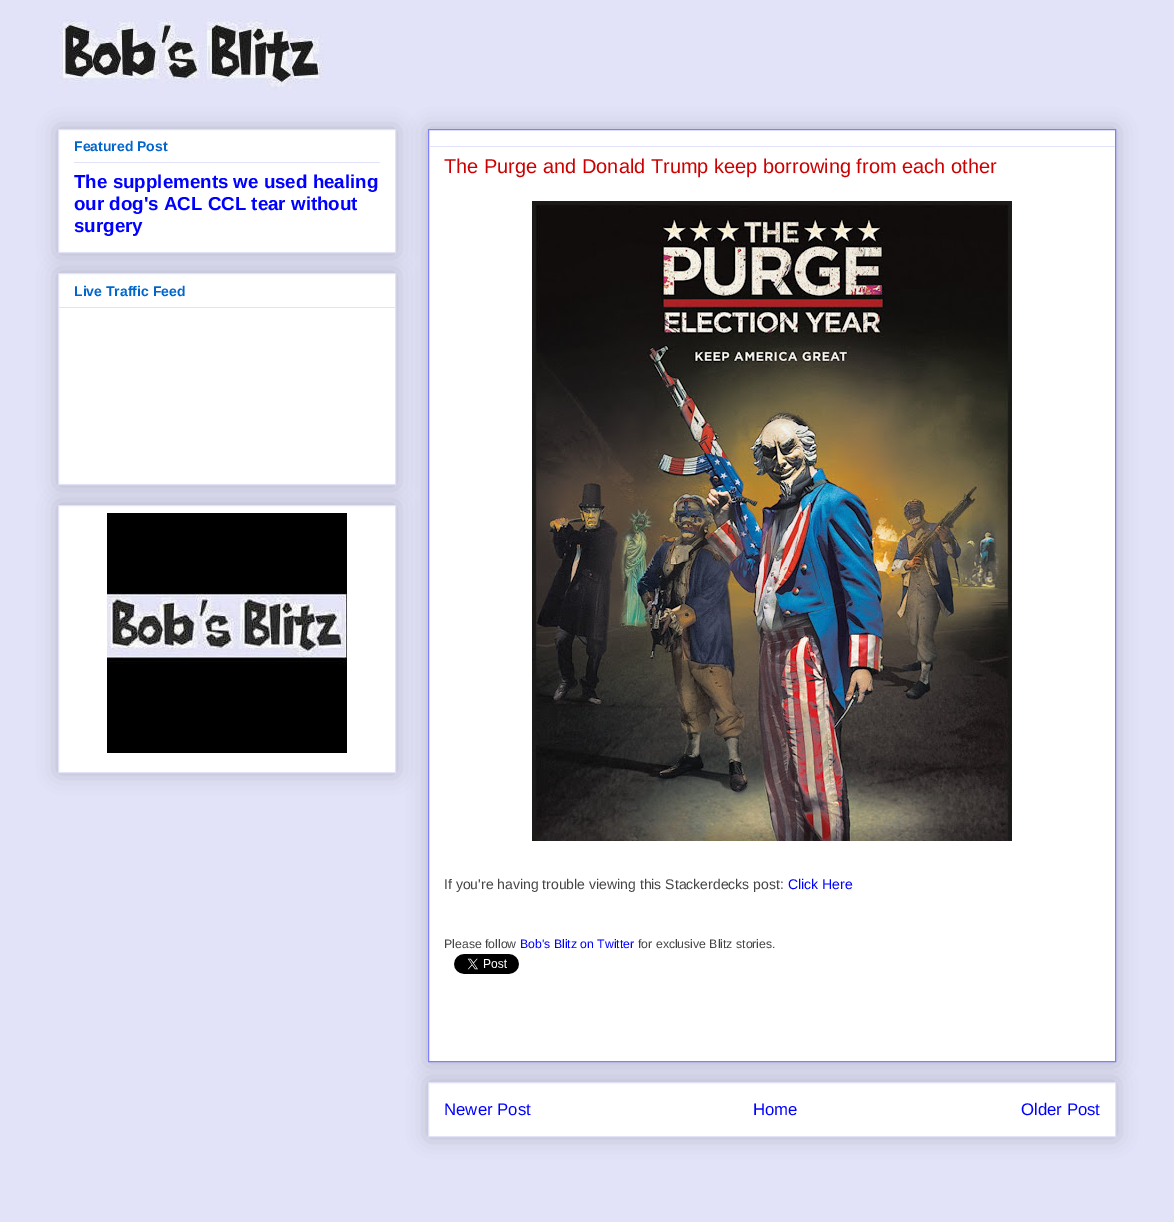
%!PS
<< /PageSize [1174 1222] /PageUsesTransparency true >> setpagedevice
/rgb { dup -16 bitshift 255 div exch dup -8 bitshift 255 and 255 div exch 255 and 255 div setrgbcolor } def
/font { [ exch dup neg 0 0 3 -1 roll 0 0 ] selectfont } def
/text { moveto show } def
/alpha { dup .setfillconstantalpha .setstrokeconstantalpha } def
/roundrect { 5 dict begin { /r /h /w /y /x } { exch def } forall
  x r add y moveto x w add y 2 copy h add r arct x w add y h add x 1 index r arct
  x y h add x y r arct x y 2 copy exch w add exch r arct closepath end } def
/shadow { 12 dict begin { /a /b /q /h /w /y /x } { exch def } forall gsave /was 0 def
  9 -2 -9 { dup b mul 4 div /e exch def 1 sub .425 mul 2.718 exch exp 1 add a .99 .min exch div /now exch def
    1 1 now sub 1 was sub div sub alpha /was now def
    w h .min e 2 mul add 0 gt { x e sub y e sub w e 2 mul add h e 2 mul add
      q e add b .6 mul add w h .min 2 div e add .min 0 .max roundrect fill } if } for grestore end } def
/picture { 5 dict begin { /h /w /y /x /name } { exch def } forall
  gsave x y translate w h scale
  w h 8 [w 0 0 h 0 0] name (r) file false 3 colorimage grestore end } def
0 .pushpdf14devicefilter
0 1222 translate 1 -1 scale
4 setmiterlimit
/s1 { /LiberationSans-Bold 14 font 16#0066CC rgb } def
/s2 { /LiberationSans-Bold 18.75 font 16#0000FF rgb } def
/s3 { /LiberationSans-Regular 20 font 16#CC0000 rgb } def
/s4 { /LiberationSans-Regular 14 font 16#444444 rgb } def
/s5 { /LiberationSans-Regular 14 font 16#0000FF rgb } def
/s6 { /LiberationSans-Regular 12.25 font 16#444444 rgb } def
/s7 { /LiberationSans-Regular 12.25 font 16#0000FF rgb } def
/s8 { /LiberationSans-Regular 16.75 font 16#0000FF rgb } def
16#E2E3F8 rgb
0 0 1174 1222 rectfill
(pic1.raw) 59 19 265 70 picture
16#000000 rgb
58 129 338 124 0 10 0.2 shadow
16#FFFFFF rgb
58.5 129.5 moveto 395.5 129.5 lineto 395.5 252.5 lineto 58.5 252.5 lineto closepath gsave fill grestore
16#E2E3F8 rgb
stroke
s1
(Featured Post) 74 151 text
16#E2E3F8 rgb
74 162 306 1 rectfill
s2
(The supplements we used healing) 74 188 text
(our dog's ACL CCL tear without) 74 210 text
(surgery) 74 232 text
16#000000 rgb
58 273 338 212 0 10 0.2 shadow
16#FFFFFF rgb
58.5 273.5 moveto 395.5 273.5 lineto 395.5 484.5 lineto 58.5 484.5 lineto closepath gsave fill grestore
16#E2E3F8 rgb
stroke
s1
(Live Traffic Feed) 74 296 text
16#E2E3F8 rgb
59 307 336 1 rectfill
16#000000 rgb
58 505 338 268 0 10 0.2 shadow
16#FFFFFF rgb
58.5 505.5 moveto 395.5 505.5 lineto 395.5 772.5 lineto 58.5 772.5 lineto closepath gsave fill grestore
16#E2E3F8 rgb
stroke
(pic2.raw) 107 513 240 240 picture
16#000000 rgb
428 1082 688 55 0 10 0.2 shadow
16#FFFFFF rgb
428.5 1082.5 moveto 1115.5 1082.5 lineto 1115.5 1136.5 lineto 428.5 1136.5 lineto closepath gsave fill grestore
16#E2E3F8 rgb
stroke
16#000000 rgb
428 129 688 933 0 10 0.2 shadow
16#FFFFFF rgb
428.5 129.5 moveto 1115.5 129.5 lineto 1115.5 1061.5 lineto 428.5 1061.5 lineto closepath gsave fill grestore
16#7F7FFF rgb
stroke
16#E2E3F8 rgb
429 146 686 1 rectfill
s3
(The Purge and Donald Trump keep borrowing from each other) 444 173 text
(pic3.raw) 532 201 480 640 picture
s4
(If you're having trouble viewing this Stackerdecks post:) 444 889 text
s5
(Click Here) 788 889 text
s6
(Please follow) 444 948 text
s7
(Bob's Blitz on Twitter) 520 948 text
s6
(for exclusive Blitz stories.) 638 948 text
(pic4.raw) 454 954 65 20 picture
s8
(Newer Post) 444 1115 text
(Home) 753 1115 text
(Older Post) 1021 1115 text
.poppdf14devicefilter showpage
